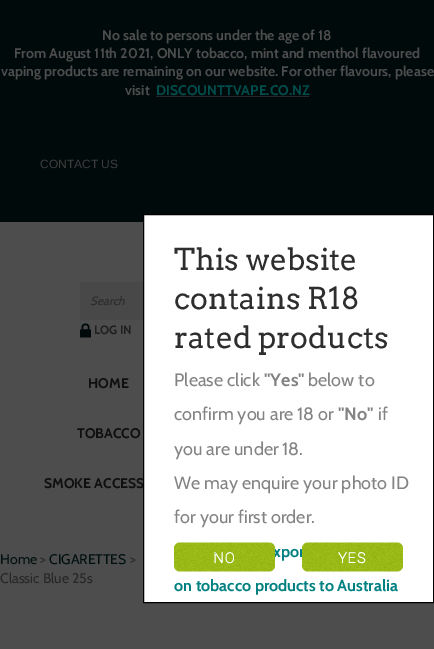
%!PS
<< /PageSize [434 649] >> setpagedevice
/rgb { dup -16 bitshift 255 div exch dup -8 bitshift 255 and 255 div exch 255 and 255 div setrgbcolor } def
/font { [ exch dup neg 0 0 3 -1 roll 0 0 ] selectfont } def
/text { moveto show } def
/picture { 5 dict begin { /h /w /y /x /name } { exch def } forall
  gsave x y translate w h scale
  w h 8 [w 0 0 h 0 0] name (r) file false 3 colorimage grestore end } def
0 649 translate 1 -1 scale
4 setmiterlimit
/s1 { /Cabin-Bold 14 font 16#4D4D4D rgb } def
/s2 { /Cabin-Bold 14 font 16#004D4D rgb } def
/s3 { /LiberationSans-Regular 12 font 16#3F3F3F rgb } def
/s4 { /Cabin-MediumItalic 12 font 16#2E2E2E rgb } def
/s5 { /Cabin-Bold 12 font 16#1F1F1F rgb } def
/s6 { /Cabin-Regular 14 font 16#000F0F rgb } def
/s7 { /Cabin-Regular 14 font 16#272727 rgb } def
/s8 { /Cabin-Bold 14 font 16#0F0F0F rgb } def
/s9 { /Arvo-Regular 30 font 16#2E2E2E rgb } def
/s10 { /Cabin-Regular 18 font 16#838383 rgb } def
/s11 { /Cabin-Bold 18 font 16#838383 rgb } def
/s12 { /Cabin-Bold 16 font 16#008080 rgb } def
16#4D4D4D rgb
0 0 434 649 rectfill
16#000A0A rgb
0 0 434 222 rectfill
s1
(No sale to persons under the age of 18) 102 40 text
(From August 11th 2021, ONLY tobacco, mint and menthol flavoured) 14 58 text
(vaping products are remaining on our website. For other flavours, please) 1 76 text
(visit) 125 95 text
s2
(DISCOUNTTVAPE.CO.NZ) 156 95 text
16#272727 rgb
156 96 153 1 rectfill
s3
(CONTACT US) 40 168 text
16#484848 rgb
80 282 63 38 rectfill
s4
(Search) 90 305 text
(pic1.raw) 80 323 11 15 picture
s5
(LOG IN) 94 334 text
s6
(Home) 0 564 text
s7
(>) 40 564 text
s6
(CIGARETTES) 49 564 text
s7
(>) 130 564 text
(Classic Blue 25s) 0 583 text
s8
(SMOKE ACCESS) 44 488 text
16#FFFFFF rgb
143.5 214.5 moveto 433.5 214.5 lineto 433.5 602.5 lineto 143.5 602.5 lineto closepath gsave fill grestore
16#000000 rgb
stroke
s9
(This website) 174 270 text
(contains R18) 174 309 text
(rated products) 174 348 text
s10
(Please click) 174 386 text
s11
("Yes") 264 386 text
s10
(below to) 308 386 text
(confirm you are 18 or) 174 420 text
s11
("No") 338 420 text
s10
(if) 378 420 text
(you are under 18.) 174 455 text
(We may enquire your photo ID) 174 489 text
(for your first order.) 174 523 text
s12
(xpor) 273 557 text
(on tobacco products to Australia) 174 591 text
(pic2.raw) 174 542 101 30 picture
(pic3.raw) 302 542 101 30 picture
s8
(HOME) 88 388 text
(TOBACCO) 77 438 text
showpage
